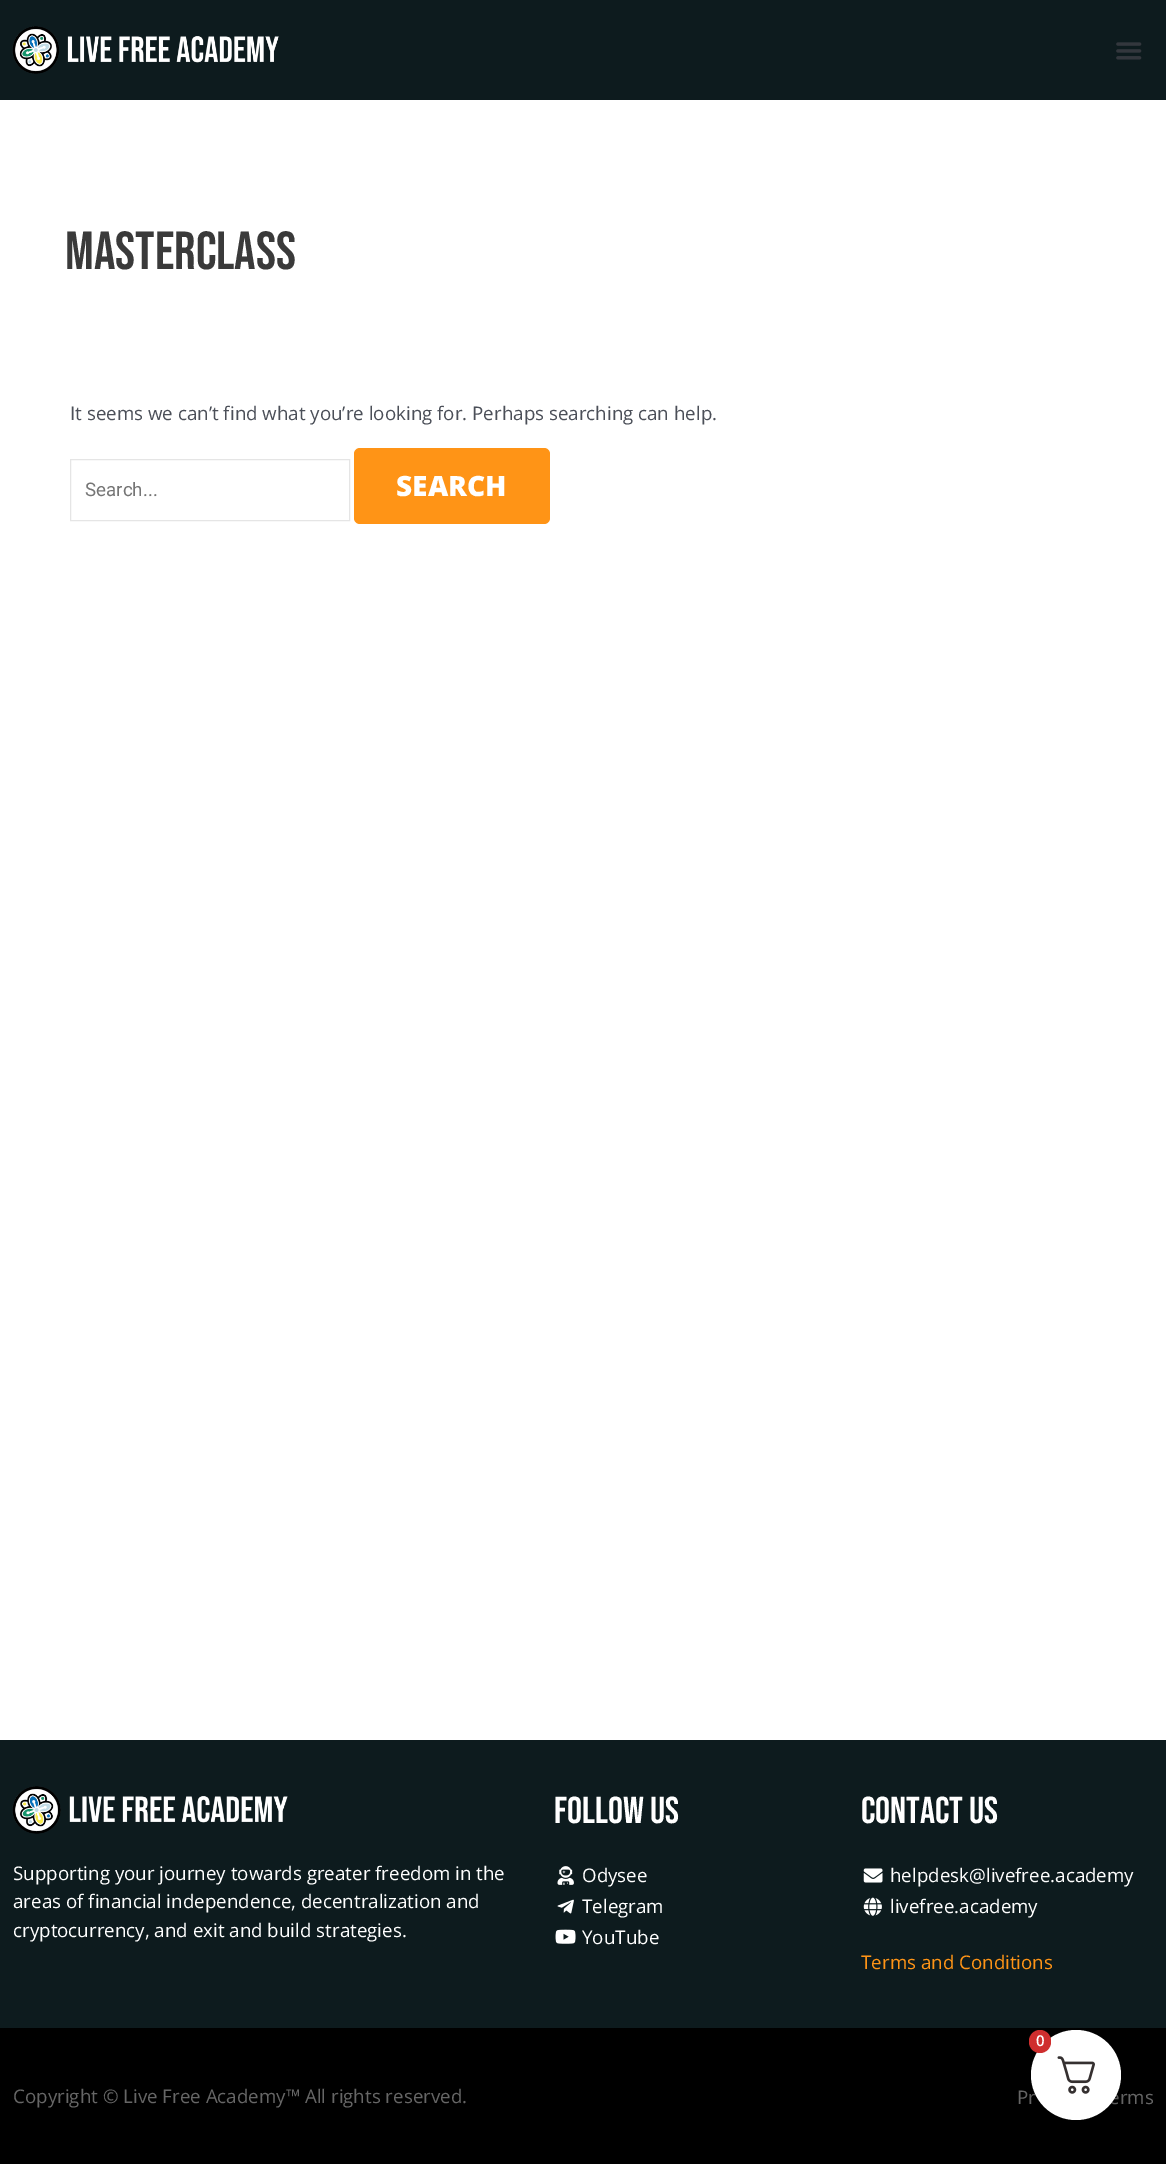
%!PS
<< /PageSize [1166 2164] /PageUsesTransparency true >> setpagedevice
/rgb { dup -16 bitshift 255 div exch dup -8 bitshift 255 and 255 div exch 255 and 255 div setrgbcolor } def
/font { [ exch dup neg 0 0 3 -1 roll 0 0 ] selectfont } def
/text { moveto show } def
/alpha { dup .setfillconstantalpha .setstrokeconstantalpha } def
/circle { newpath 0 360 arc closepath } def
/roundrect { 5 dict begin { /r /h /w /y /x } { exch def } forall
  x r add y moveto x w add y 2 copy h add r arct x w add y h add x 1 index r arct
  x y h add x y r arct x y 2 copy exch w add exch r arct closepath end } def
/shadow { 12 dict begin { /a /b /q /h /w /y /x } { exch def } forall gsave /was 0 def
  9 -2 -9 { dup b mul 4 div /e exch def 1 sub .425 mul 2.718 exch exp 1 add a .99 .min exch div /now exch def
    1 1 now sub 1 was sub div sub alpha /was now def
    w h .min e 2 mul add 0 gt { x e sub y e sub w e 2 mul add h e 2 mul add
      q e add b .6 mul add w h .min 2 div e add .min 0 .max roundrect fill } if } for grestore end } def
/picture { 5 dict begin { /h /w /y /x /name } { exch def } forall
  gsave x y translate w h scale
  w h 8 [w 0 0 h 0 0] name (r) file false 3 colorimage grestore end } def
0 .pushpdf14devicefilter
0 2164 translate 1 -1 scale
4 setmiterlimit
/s1 { /BebasNeue-Regular 53.5 font 16#3A3A3A rgb } def
/s2 { /OpenSans-Regular 18.75 font 16#4B4F58 rgb } def
/s3 { /Roboto-Regular 18.75 font 16#757575 rgb } def
/s4 { /OpenSans-ExtraBold 28 font 16#FFFFFF rgb } def
/s5 { /OpenSans-Regular 18.75 font 16#FFFFFF rgb } def
/s6 { /BebasNeue-Regular 37.5 font 16#FFFFFF rgb } def
/s7 { /OpenSans-Regular 18.75 font 16#FF9416 rgb } def
/s8 { /OpenSans-Regular 18.75 font 16#666666 rgb } def
/s9 { /OpenSans-SemiBold 15 font 16#FFFFFF rgb } def
16#FFFFFF rgb
0 0 1166 2164 rectfill
16#0D1B1E rgb
0 0 1166 100 rectfill
(pic1.raw) 12 26 267 48 picture
(pic2.raw) 1116 42 26 18 picture
s1
(Masterclass) 65 269 text
s2
(It seems we can’t find what you’re looking for. Perhaps searching can help.) 70 420 text
16#E5E5E5 rgb
70.5 459.5 279 61 rectstroke
s3
(Search...) 85 496 text
16#FF9416 rgb
354 448 196 76 6 roundrect fill
s4
(SEARCH) 396 496 text
16#0D1B1E rgb
0 1740 1166 288 rectfill
(pic3.raw) 12 1786 276 48 picture
s5
(Supporting your journey towards greater freedom in the) 13 1880 text
(areas of financial independence, decentralization and) 13 1908 text
(cryptocurrency, and exit and build strategies.) 13 1937 text
s6
(Follow Us) 554 1823 text
(pic4.raw) 557 1866 17 19 picture
s5
(Odysee) 582 1882 text
(pic5.raw) 557 1899 17 15 picture
(Telegram) 582 1913 text
(pic6.raw) 555 1929 21 15 picture
(YouTube) 582 1944 text
s6
(Contact Us) 861 1823 text
(pic7.raw) 863 1868 20 15 picture
s5
(helpdesk@livefree.academy) 890 1882 text
(pic8.raw) 863 1897 19 19 picture
(livefree.academy) 890 1913 text
s7
(Terms and Conditions) 861 1969 text
16#000000 rgb
0 2028 1166 136 rectfill
s8
(Copyright © Live Free Academy™ All rights reserved.) 13 2103 text
(Pr) 1017 2104 text
(erms) 1109 2104 text
16#000000 rgb
1031 2033 90 90 45 5 0.25 shadow
16#FFFFFF rgb
1076 2075 45 circle fill
(pic9.raw) 1057 2056 38 38 picture
16#CF2E2E rgb
1029 2030 22 23 11 roundrect fill
s9
(0) 1036 2046 text
.poppdf14devicefilter showpage
